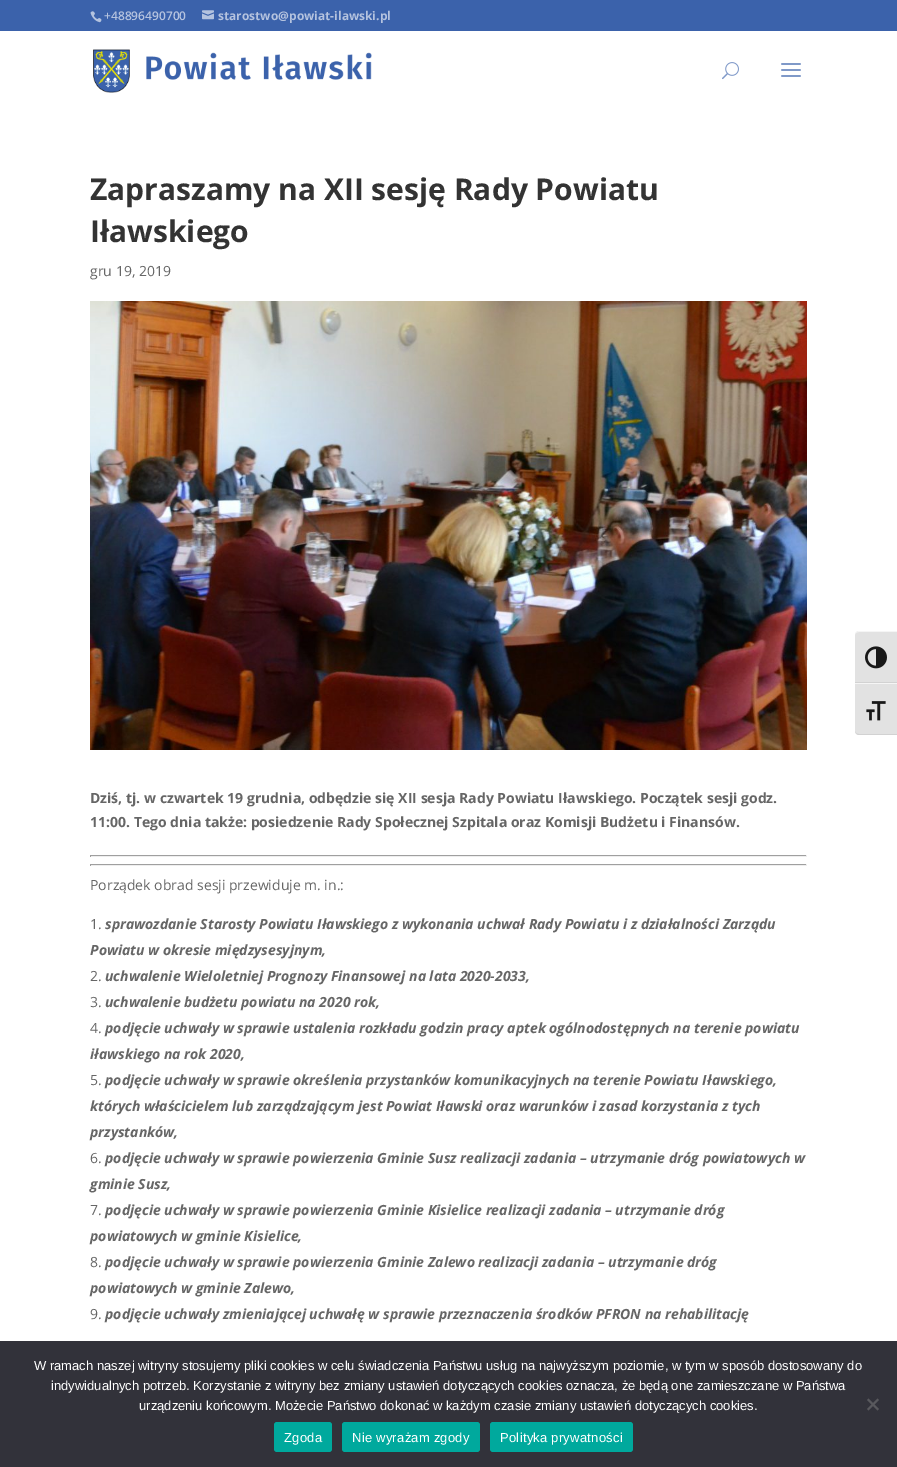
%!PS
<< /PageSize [897 1467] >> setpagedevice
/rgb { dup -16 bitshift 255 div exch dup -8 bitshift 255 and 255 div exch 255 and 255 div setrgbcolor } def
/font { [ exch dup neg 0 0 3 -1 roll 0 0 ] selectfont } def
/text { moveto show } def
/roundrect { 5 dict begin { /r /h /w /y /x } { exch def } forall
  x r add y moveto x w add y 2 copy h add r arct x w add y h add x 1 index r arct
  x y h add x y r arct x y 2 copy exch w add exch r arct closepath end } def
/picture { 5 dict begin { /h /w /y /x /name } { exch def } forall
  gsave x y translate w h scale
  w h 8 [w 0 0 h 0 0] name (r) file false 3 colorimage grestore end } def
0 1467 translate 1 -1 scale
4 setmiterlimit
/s1 { /OpenSans-SemiBold 12 font 16#B5C3DF rgb } def
/s2 { /OpenSans-Bold 12 font 16#B5C3DF rgb } def
/s3 { /OpenSans-Bold 30 font 16#333333 rgb } def
/s4 { /OpenSans-Regular 14 font 16#666666 rgb } def
/s5 { /OpenSans-Bold 14 font 16#666666 rgb } def
/s6 { /OpenSans-BoldItalic 14 font 16#666666 rgb } def
/s7 { /LiberationSans-Regular 13 font 16#FFFFFF rgb } def
16#FFFFFF rgb
0 0 897 1467 rectfill
16#3B62AB rgb
0 0 897 31 rectfill
(pic1.raw) 90 11 12 12 picture
s1
(+48896490700) 104 20 text
(pic2.raw) 202 10 12 10 picture
s2
(starostwo@powiat-ilawski.pl) 218 20 text
(pic3.raw) 93 49 279 44 picture
(pic4.raw) 722 62 17 18 picture
(pic5.raw) 781 63 20 14 picture
s3
(Zapraszamy na XII sesję Rady Powiatu) 90 200 text
(Iławskiego) 90 242 text
s4
(gru 19, 2019) 90 276 text
(pic6.raw) 90 301 717 449 picture
s5
(Dziś, tj. w czwartek 19 grudnia, odbędzie się XII sesja Rady Powiatu Iławskiego. Początek sesji godz.) 90 803 text
(11:00. Tego dnia także: posiedzenie Rady Społecznej Szpitala oraz Komisji Budżetu i Finansów.) 90 827 text
16#9F9F9F rgb
90 855 717 1 rectfill
16#EEEEEE rgb
806 855 1 2 rectfill
90 856 717 1 rectfill
16#9F9F9F rgb
90 855 1 2 rectfill
90 864 717 1 rectfill
16#EEEEEE rgb
806 864 1 2 rectfill
90 865 717 1 rectfill
16#9F9F9F rgb
90 864 1 2 rectfill
s4
(Porządek obrad sesji przewiduje m. in.:) 90 890 text
(1.) 90 929 text
s6
(sprawozdanie Starosty Powiatu Iławskiego z wykonania uchwał Rady Powiatu i z działalności Zarządu) 105 929 text
(Powiatu w okresie międzysesyjnym,) 90 955 text
s4
(2.) 90 981 text
s6
(uchwalenie Wieloletniej Prognozy Finansowej na lata 2020-2033,) 105 981 text
s4
(3.) 90 1007 text
s6
(uchwalenie budżetu powiatu na 2020 rok,) 105 1007 text
s4
(4.) 90 1033 text
s6
(podjęcie uchwały w sprawie ustalenia rozkładu godzin pracy aptek ogólnodostępnych na terenie powiatu) 105 1033 text
(iławskiego na rok 2020,) 90 1059 text
s4
(5.) 90 1085 text
s6
(podjęcie uchwały w sprawie określenia przystanków komunikacyjnych na terenie Powiatu Iławskiego,) 105 1085 text
(których właścicielem lub zarządzającym jest Powiat Iławski oraz warunków i zasad korzystania z tych) 90 1111 text
(przystanków,) 90 1137 text
s4
(6.) 90 1163 text
s6
(podjęcie uchwały w sprawie powierzenia Gminie Susz realizacji zadania – utrzymanie dróg powiatowych w) 105 1163 text
(gminie Susz,) 90 1189 text
s4
(7.) 90 1215 text
s6
(podjęcie uchwały w sprawie powierzenia Gminie Kisielice realizacji zadania – utrzymanie dróg) 105 1215 text
(powiatowych w gminie Kisielice,) 90 1241 text
s4
(8.) 90 1267 text
s6
(podjęcie uchwały w sprawie powierzenia Gminie Zalewo realizacji zadania – utrzymanie dróg) 105 1267 text
(powiatowych w gminie Zalewo,) 90 1293 text
s4
(9.) 90 1319 text
s6
(podjęcie uchwały zmieniającej uchwałę w sprawie przeznaczenia środków PFRON na rehabilitację) 105 1319 text
16#E2E2E2 rgb
859 631 moveto 897 631 lineto 897 683 lineto 855 683 lineto 855 635 lineto 855 633 857 631 859 631 curveto closepath fill
16#F5F5F5 rgb
859 632 moveto 897 632 lineto 897 631 lineto 859 631 lineto 857 631 855 633 855 635 curveto 855 633 857 632 859 632 curveto closepath fill
16#D2D2D2 rgb
855 682 42 1 rectfill
(pic7.raw) 865 646 22 23 picture
16#E2E2E2 rgb
855 683 moveto 897 683 lineto 897 735 lineto 859 735 lineto 857 735 855 733 855 731 curveto closepath fill
16#F5F5F5 rgb
855 683 42 1 rectfill
16#D2D2D2 rgb
897 735 moveto 897 734 lineto 859 734 lineto 857 734 855 733 855 731 curveto 855 733 857 735 859 735 curveto closepath fill
(pic8.raw) 866 701 20 20 picture
16#32323A rgb
0 1341 897 126 rectfill
s7
(W ramach naszej witryny stosujemy pliki cookies w celu świadczenia Państwu usług na najwyższym poziomie, w tym w sposób dostosowany do) 34 1370 text
(indywidualnych potrzeb. Korzystanie z witryny bez zmiany ustawień dotyczących cookies oznacza, że będą one zamieszczane w Państwa) 51 1390 text
(urządzeniu końcowym. Możecie Państwo dokonać w każdym czasie zmiany ustawień dotyczących cookies.) 139 1410 text
16#59595D rgb
877.5 1398.5 moveto 879 1400 lineto 868.5 1410.5 lineto 867 1409 lineto closepath fill
867 1400 moveto 868.5 1398.5 lineto 879 1409 lineto 877.5 1410.5 lineto closepath fill
16#00A99D rgb
274 1422 58 30 3 roundrect fill
16#FFFFFF rgb
284 1442 moveto 0.25 0 (Zgoda) ashow
16#00A99D rgb
342 1422 138 30 3 roundrect fill
16#FFFFFF rgb
352 1442 moveto 0.25 0 (Nie wyrażam zgody) ashow
16#00A99D rgb
490 1422 143 30 3 roundrect fill
16#FFFFFF rgb
500 1442 moveto 0.25 0 (Polityka prywatności) ashow
showpage
